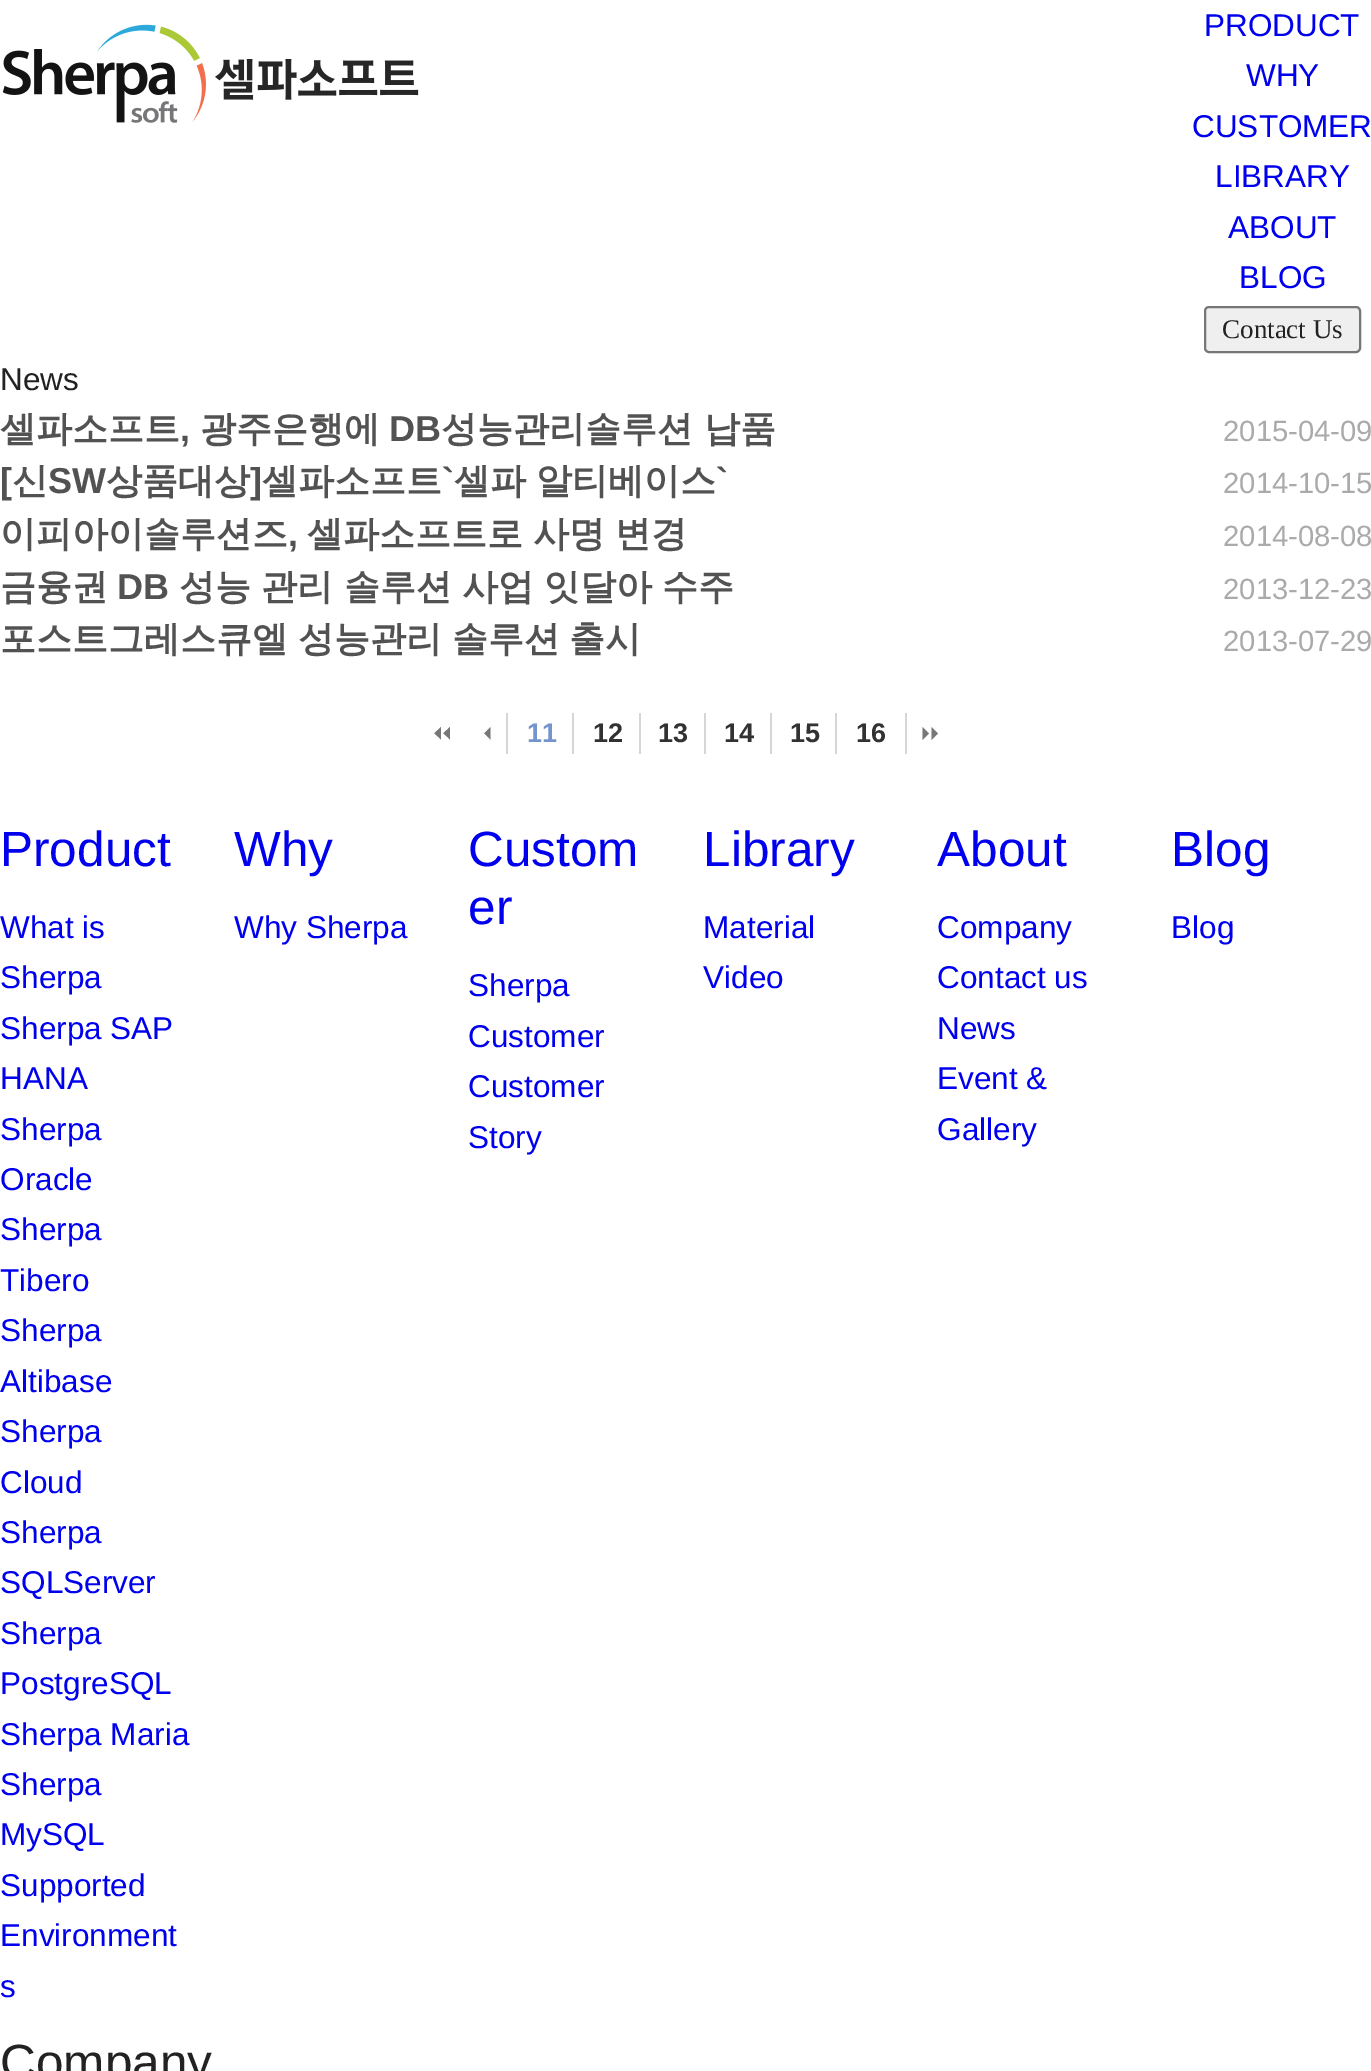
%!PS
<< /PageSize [1371 2071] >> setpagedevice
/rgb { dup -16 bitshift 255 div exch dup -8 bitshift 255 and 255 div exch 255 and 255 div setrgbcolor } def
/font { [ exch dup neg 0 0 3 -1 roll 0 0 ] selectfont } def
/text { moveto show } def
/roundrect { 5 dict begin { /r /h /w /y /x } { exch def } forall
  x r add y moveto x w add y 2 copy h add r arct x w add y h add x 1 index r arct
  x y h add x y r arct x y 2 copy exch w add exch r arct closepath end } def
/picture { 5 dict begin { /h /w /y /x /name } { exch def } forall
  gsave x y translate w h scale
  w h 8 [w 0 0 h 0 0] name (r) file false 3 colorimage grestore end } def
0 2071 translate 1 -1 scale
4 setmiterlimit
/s1 { /LiberationSans-Regular 31.5 font 16#0000EE rgb } def
/s2 { /LiberationSerif-Regular 27 font 16#222222 rgb } def
/s3 { /LiberationSans-Regular 31.5 font 16#222222 rgb } def
/s4 { /WenQuanYiZenHei-Bold 36 font 16#525252 rgb } def
/s5 { /LiberationSans-Bold 36 font 16#525252 rgb } def
/s6 { /LiberationSans-Regular 29.25 font 16#AAAAAA rgb } def
/s7 { /LiberationSans-Bold 27 font 16#7494CD rgb } def
/s8 { /LiberationSans-Bold 27 font 16#323232 rgb } def
/s9 { /LiberationSans-Regular 49.5 font 16#0000EE rgb } def
/s10 { /LiberationSans-Regular 49.5 font 16#222222 rgb } def
16#FFFFFF rgb
0 0 1371 2071 rectfill
(pic1.raw) 2 24 417 99 picture
s1
(PRODUCT) 1204 36 text
(WHY) 1246 86 text
(CUSTOMER) 1192 137 text
(LIBRARY) 1215 187 text
(ABOUT) 1228 238 text
(BLOG) 1239 288 text
16#EFEFEF rgb
1205 307 155 45 4 roundrect gsave fill grestore
16#767676 rgb
2 setlinewidth
stroke
s2
(Contact Us) 1222 338 text
s3
(News) 0 390 text
s4
(셀파소프트) 0 441 text
s5
(,) 180 441 text
s4
(광주은행에) 200 441 text
s5
(DB) 389 441 text
s4
(성능관리솔루션 납품) 441 441 text
s6
(2015-04-09) 1223 441 text
s5
([) 0 493 text
s4
(신) 12 493 text
s5
(SW) 48 493 text
s4
(상품대상) 106 493 text
s5
(]) 250 493 text
s4
(셀파소프트) 262 493 text
s5
(`) 442 493 text
/WenQuanYiZenHei-Bold 36 font
454 493 moveto -1 0 32 (셀파 알티베이스) widthshow
s5
(`) 716 493 text
s6
(2014-10-15) 1223 493 text
s4
(이피아이솔루션즈) 0 546 text
s5
(,) 288 546 text
/WenQuanYiZenHei-Bold 36 font
307 546 moveto -1 0 32 (셀파소프트로 사명 변경) widthshow
s6
(2014-08-08) 1223 546 text
s4
(금융권) 0 599 text
s5
(DB) 117 599 text
/WenQuanYiZenHei-Bold 36 font
179 599 moveto -0.5 0 32 (성능 관리 솔루션 사업 잇달아 수주) widthshow
s6
(2013-12-23) 1223 599 text
/WenQuanYiZenHei-Bold 36 font
16#525252 rgb
0 651 moveto -1 0 32 (포스트그레스큐엘 성능관리 솔루션 출시) widthshow
s6
(2013-07-29) 1223 651 text
16#777777 rgb
441 727 moveto 441 740 lineto 434 733.5 lineto closepath fill
16#FFFFFF rgb
441 740 moveto 434 740 lineto 434 733.5 lineto closepath fill
16#777777 rgb
450 727 moveto 450 740 lineto 443 733.5 lineto closepath fill
16#FFFFFF rgb
450 740 moveto 443 740 lineto 443 733.5 lineto closepath fill
16#777777 rgb
490.5 727 moveto 490.5 740 lineto 484 733.5 lineto closepath fill
16#FFFFFF rgb
490.5 740 moveto 484 740 lineto 484 733.5 lineto closepath fill
16#D6D6D6 rgb
506 713 2 41 rectfill
s7
(11) 527 742 text
16#D6D6D6 rgb
572 713 2 41 rectfill
s8
(12) 593 742 text
16#D6D6D6 rgb
639 713 2 41 rectfill
s8
(13) 658 742 text
16#D6D6D6 rgb
704 713 2 41 rectfill
s8
(14) 724 742 text
16#D6D6D6 rgb
770 713 2 41 rectfill
s8
(15) 790 742 text
16#D6D6D6 rgb
905 713 2 41 rectfill
835 713 2 41 rectfill
s8
(16) 856 742 text
16#777777 rgb
922.5 740 moveto 922.5 727 lineto 929 733.5 lineto closepath 931.5 740 moveto 931.5 727 lineto 938 733.5 lineto closepath fill
s9
(Product) 0 866 text
s1
(What is) 0 938 text
(Sherpa) 0 988 text
(Sherpa SAP) 0 1039 text
(HANA) 0 1089 text
(Sherpa) 0 1140 text
(Oracle) 0 1190 text
(Sherpa) 0 1240 text
(Tibero) 0 1291 text
(Sherpa) 0 1341 text
(Altibase) 0 1392 text
(Sherpa) 0 1442 text
(Cloud) 0 1493 text
(Sherpa) 0 1543 text
(SQLServer) 0 1593 text
(Sherpa) 0 1644 text
(PostgreSQL) 0 1694 text
(Sherpa Maria) 0 1745 text
(Sherpa) 0 1795 text
(MySQL) 0 1845 text
(Supported) 0 1896 text
(Environment) 0 1946 text
(s) 0 1997 text
s9
(Why) 234 866 text
s1
(Why Sherpa) 234 938 text
s9
(Custom) 468 866 text
(er) 468 924 text
s1
(Sherpa) 468 996 text
(Customer) 468 1047 text
(Customer) 468 1097 text
(Story) 468 1148 text
s9
(Library) 703 866 text
s1
(Material) 703 938 text
(Video) 703 988 text
s9
(About) 937 866 text
s1
(Company) 937 938 text
(Contact us) 937 988 text
(News) 937 1039 text
(Event &) 937 1089 text
(Gallery) 937 1140 text
s9
(Blog) 1171 866 text
s1
(Blog) 1171 938 text
s10
(Company) 0 2079 text
showpage
